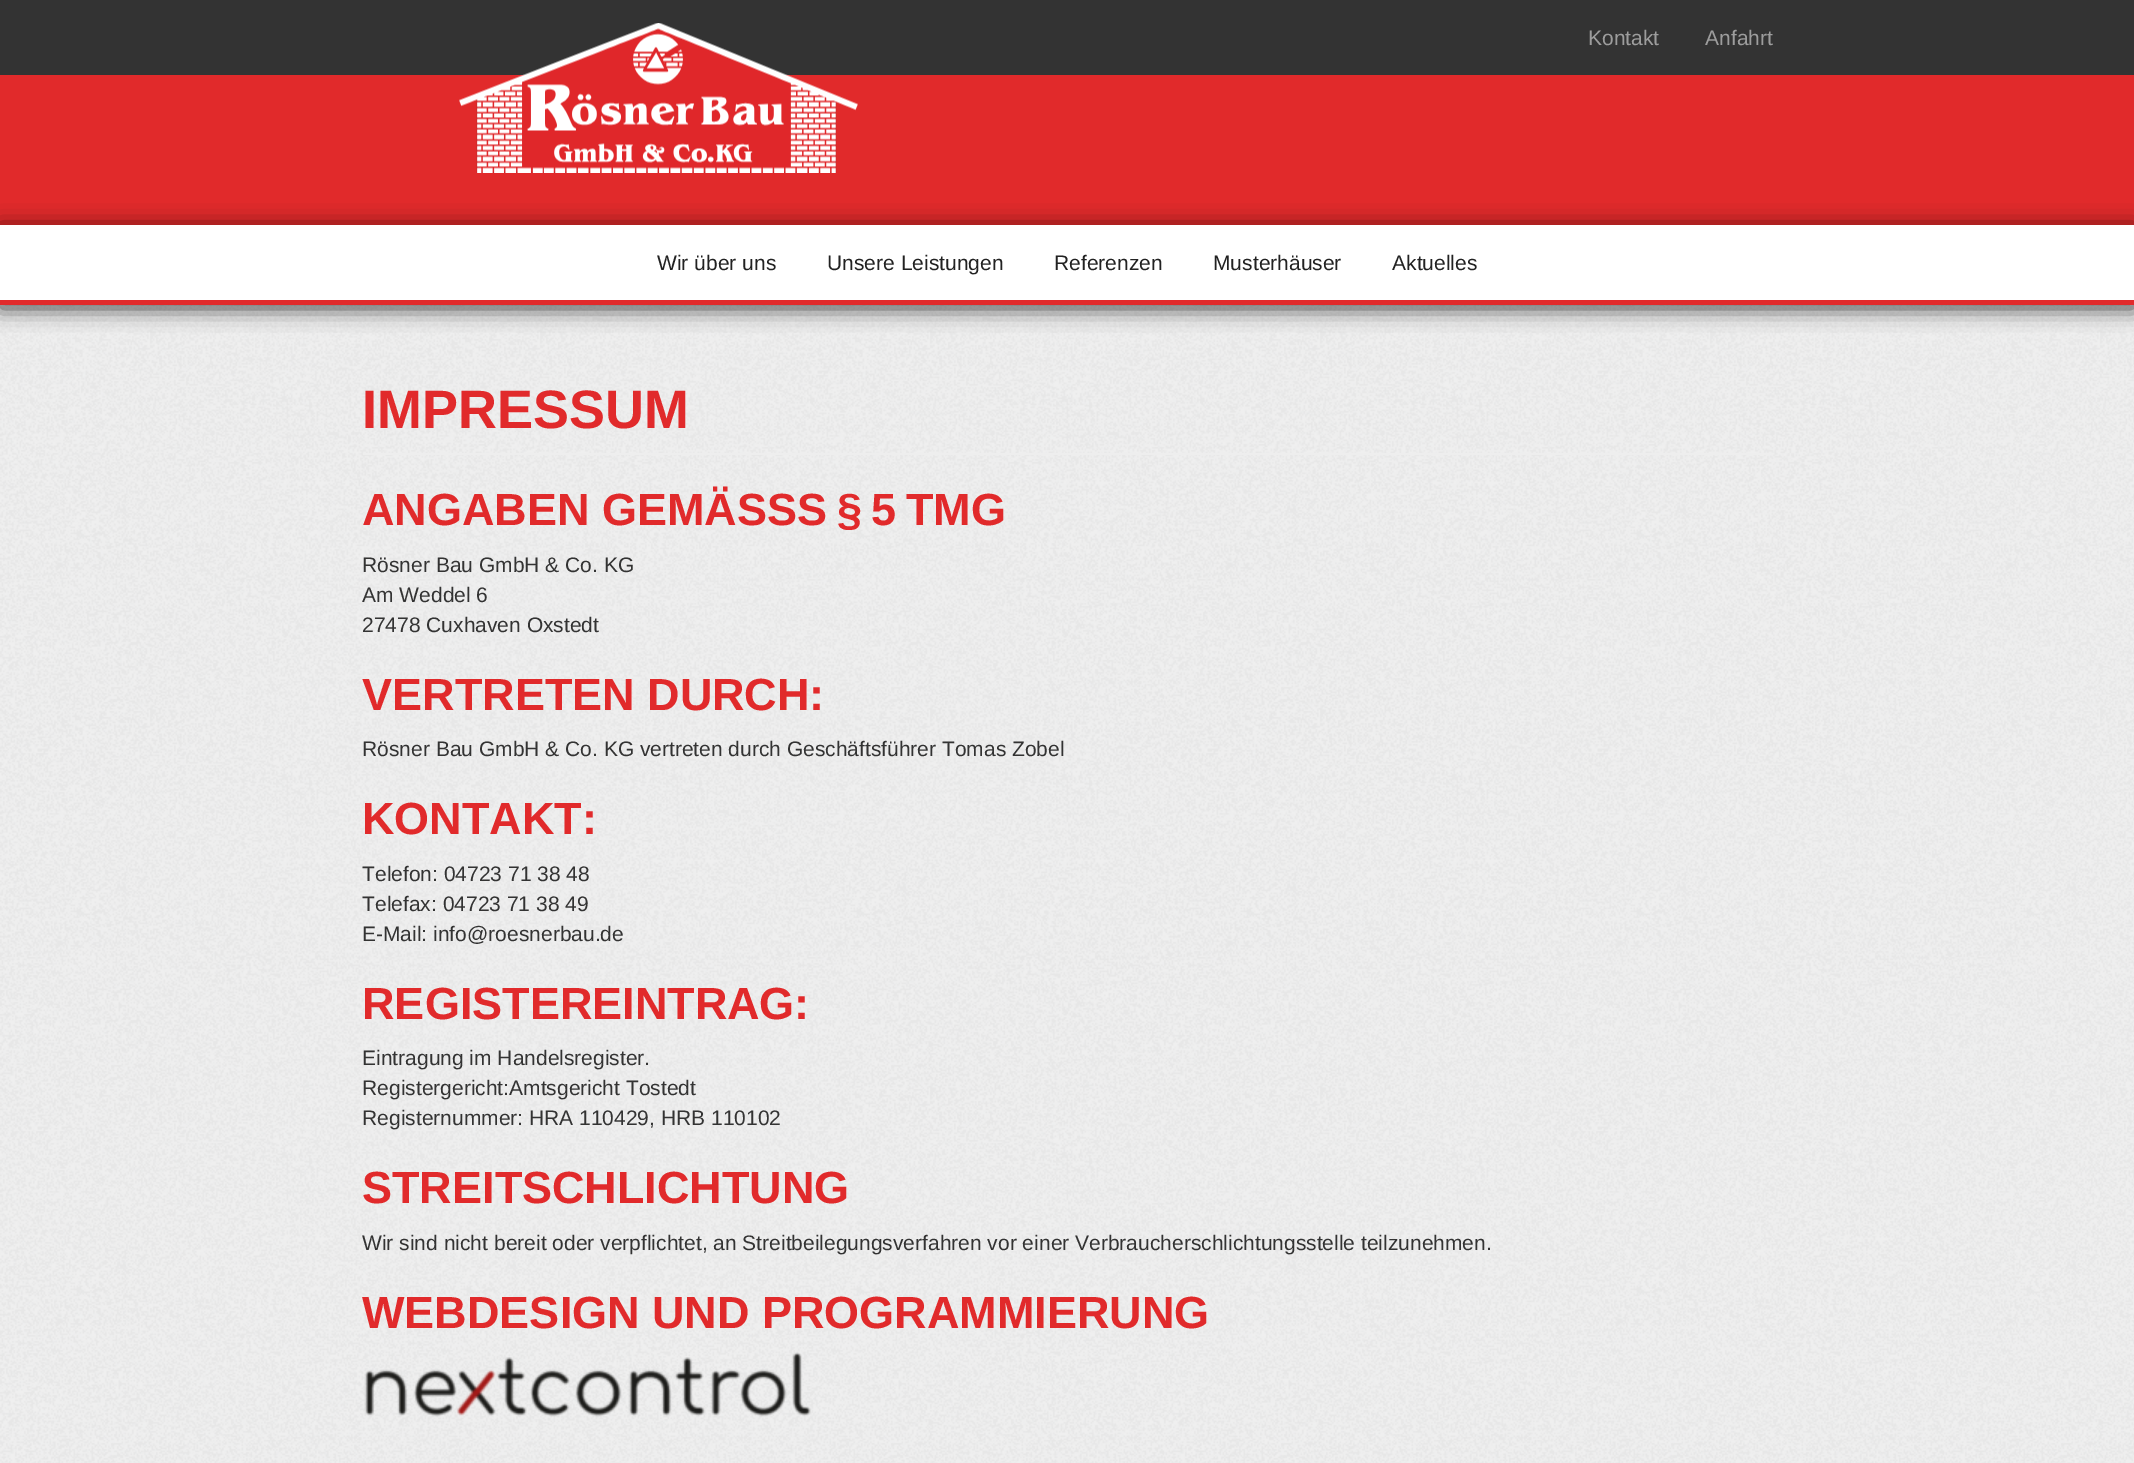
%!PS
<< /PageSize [2134 1463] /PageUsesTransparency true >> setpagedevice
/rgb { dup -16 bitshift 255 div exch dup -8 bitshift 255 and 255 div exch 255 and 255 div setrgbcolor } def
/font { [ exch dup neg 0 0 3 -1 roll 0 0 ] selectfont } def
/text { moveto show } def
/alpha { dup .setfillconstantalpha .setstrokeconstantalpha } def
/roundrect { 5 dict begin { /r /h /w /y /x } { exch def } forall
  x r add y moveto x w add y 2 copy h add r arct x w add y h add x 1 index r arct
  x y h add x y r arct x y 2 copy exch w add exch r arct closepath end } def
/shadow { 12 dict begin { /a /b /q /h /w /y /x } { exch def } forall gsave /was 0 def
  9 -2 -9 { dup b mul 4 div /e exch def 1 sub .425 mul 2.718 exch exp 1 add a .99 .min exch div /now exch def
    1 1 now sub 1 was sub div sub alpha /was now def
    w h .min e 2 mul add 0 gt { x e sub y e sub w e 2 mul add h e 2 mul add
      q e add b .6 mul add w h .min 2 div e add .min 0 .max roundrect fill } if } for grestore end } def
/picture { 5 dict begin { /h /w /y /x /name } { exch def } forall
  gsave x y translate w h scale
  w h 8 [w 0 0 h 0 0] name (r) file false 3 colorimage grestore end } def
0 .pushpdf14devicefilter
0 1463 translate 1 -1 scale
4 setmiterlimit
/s1 { /LiberationSans-Regular 21 font 16#9D9D9D rgb } def
/s2 { /LiberationSans-Regular 21 font 16#222222 rgb } def
/s3 { /LiberationSans-Bold 54 font 16#E12A2B rgb } def
/s4 { /LiberationSans-Bold 45 font 16#E12A2B rgb } def
/s5 { /LiberationSans-Regular 21 font 16#333333 rgb } def
16#EEEEEE rgb
0 0 2134 1463 rectfill
16#E12A2B rgb
0 75 2134 150 rectfill
16#333333 rgb
0 0 2134 75 rectfill
(pic1.raw) 459 23 399 150 picture
s1
(Kontakt) 1588 45 text
(Anfahrt) 1705 45 text
(pic2.raw) 0 305 2134 1158 picture
16#000000 rgb
0 228 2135 80 0 11 0.75 shadow
16#FFFFFF rgb
0 225 2134 75 rectfill
16#E12A2B rgb
0 300 2134 5 rectfill
s2
(Wir über uns) 657 270 text
(Unsere Leistungen) 827 270 text
(Referenzen) 1054 270 text
(Musterhäuser) 1213 270 text
(Aktuelles) 1392 270 text
16#EEEEEE rgb
363 453 1410 2 rectfill
s3
(IMPRESSUM) 362 428 text
s4
(ANGABEN GEMÄSS) 362 525 text
797 525 moveto -3 0 32 (S § 5 TMG) widthshow
s5
(Rösner Bau GmbH & Co. KG) 362 572 text
(Am Weddel 6) 362 602 text
(27478 Cuxhaven Oxstedt) 362 632 text
s4
(VERTRETEN DURCH:) 362 710 text
s5
(Rösner Bau GmbH & Co. KG vertreten durch Geschäftsführer Tomas Zobel) 362 756 text
s4
(KONTAKT:) 362 834 text
s5
(Telefon: 04723 71 38 48) 362 881 text
(Telefax: 04723 71 38 49) 362 911 text
(E-Mail: info@roesnerbau.de) 362 941 text
s4
(REGISTEREINTRAG:) 362 1019 text
s5
(Eintragung im Handelsregister.) 362 1065 text
(Registergericht:Amtsgericht Tostedt) 362 1095 text
(Registernummer: HRA 110429, HRB 110102) 362 1125 text
s4
(STREITSCHLICHTUNG) 362 1203 text
s5
(Wir sind nicht bereit oder verpflichtet, an Streitbeilegungsverfahren vor einer Verbraucherschlichtungsstelle teilzunehmen.) 362 1250 text
s4
(WEBDESIGN UND PROGRAMMIERUNG) 362 1328 text
(pic3.raw) 364 1352 447 65 picture
.poppdf14devicefilter showpage
